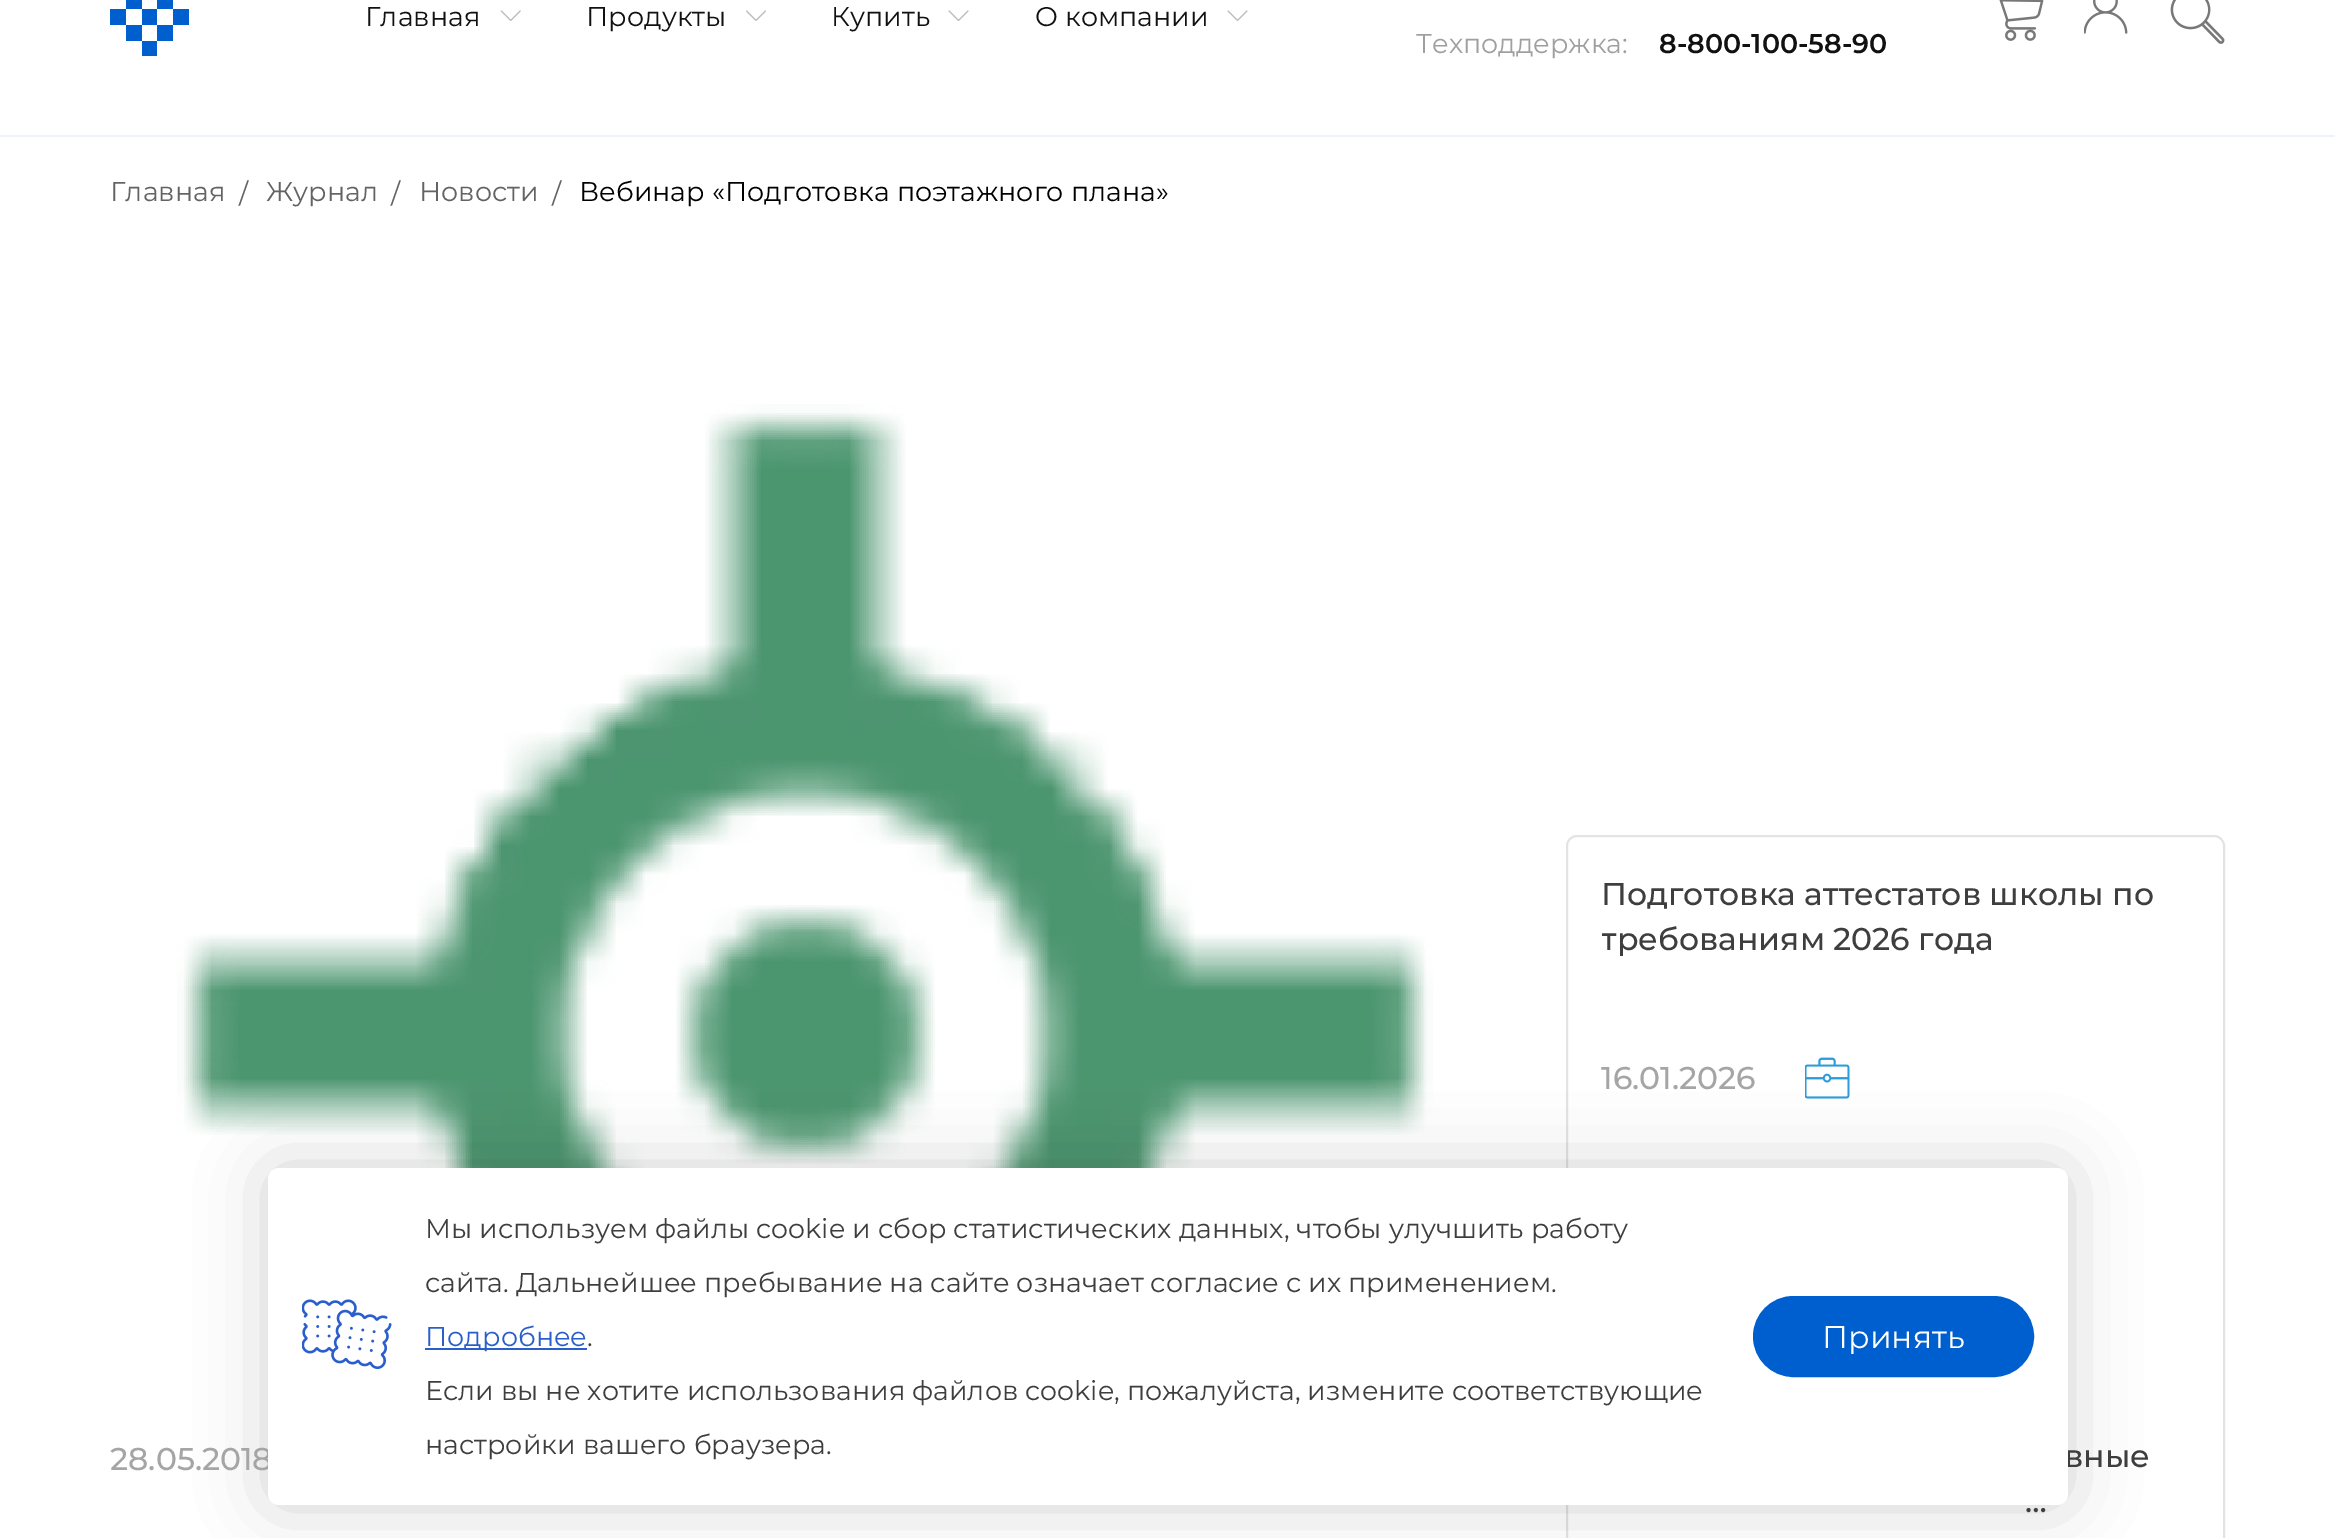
%!PS
<< /PageSize [2335 1538] /PageUsesTransparency true >> setpagedevice
/rgb { dup -16 bitshift 255 div exch dup -8 bitshift 255 and 255 div exch 255 and 255 div setrgbcolor } def
/font { [ exch dup neg 0 0 3 -1 roll 0 0 ] selectfont } def
/text { moveto show } def
/alpha { dup .setfillconstantalpha .setstrokeconstantalpha } def
/roundrect { 5 dict begin { /r /h /w /y /x } { exch def } forall
  x r add y moveto x w add y 2 copy h add r arct x w add y h add x 1 index r arct
  x y h add x y r arct x y 2 copy exch w add exch r arct closepath end } def
/shadow { 12 dict begin { /a /b /q /h /w /y /x } { exch def } forall gsave /was 0 def
  9 -2 -9 { dup b mul 4 div /e exch def 1 sub .425 mul 2.718 exch exp 1 add a .99 .min exch div /now exch def
    1 1 now sub 1 was sub div sub alpha /was now def
    w h .min e 2 mul add 0 gt { x e sub y e sub w e 2 mul add h e 2 mul add
      q e add b .6 mul add w h .min 2 div e add .min 0 .max roundrect fill } if } for grestore end } def
/picture { 5 dict begin { /h /w /y /x /name } { exch def } forall
  gsave x y translate w h scale
  w h 8 [w 0 0 h 0 0] name (r) file false 3 colorimage grestore end } def
0 .pushpdf14devicefilter
0 1538 translate 1 -1 scale
4 setmiterlimit
/s1 { /Montserrat-Regular 27 font 16#111111 rgb } def
/s2 { /Montserrat-Regular 27 font 16#9F9F9F rgb } def
/s3 { /Montserrat-SemiBold 27 font 16#111111 rgb } def
/s4 { /Montserrat-Medium 31.5 font 16#A5A5A5 rgb } def
/s5 { /Montserrat-Medium 31.5 font 16#3E3E3E rgb } def
/s6 { /Montserrat-Regular 27 font 16#3E3E3E rgb } def
/s7 { /Montserrat-Regular 27 font 16#2A5FCB rgb } def
/s8 { /Montserrat-Regular 31.5 font 16#FFFFFF rgb } def
/s9 { /Montserrat-Regular 27 font 16#636363 rgb } def
/s10 { /Montserrat-Regular 27 font 16#000000 rgb } def
16#FFFFFF rgb
0 0 2335 1538 rectfill
16#EEF2FB rgb
0 135 2335 2 rectfill
16#005FCF rgb
126 0 16 9 rectfill
157 0 16 9 rectfill
142 9 15 16 rectfill
110 9 16 16 rectfill
173 9 16 16 rectfill
157 25 16 16 rectfill
126 25 16 16 rectfill
142 41 15 15 rectfill
s1
(Главная) 365 26 text
(pic1.raw) 500 10 21 11 picture
(Продукты) 586 26 text
(pic2.raw) 746 10 20 11 picture
(Купить) 831 26 text
(pic3.raw) 948 10 21 11 picture
(О компании) 1035 26 text
(pic3.raw) 1227 10 21 11 picture
s2
(Техподдержка:) 1416 53 text
s3
(8-800-100-58-90) 1659 53 text
(pic4.raw) 2084 0 44 34 picture
(pic5.raw) 2170 0 55 44 picture
(pic6.raw) 1999 0 45 41 picture
(pic8.raw) 177 404 1256 764 picture
16#E3E3E3 rgb
2 setlinewidth
1567 836 657 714 10 roundrect stroke
(pic9.raw) 1805 1057 45 42 picture
16#222222 rgb
268 1168 1800 337 11 34 0.2 shadow
s4
(28.05.2018) 110 1470 text
s5
(вные) 2064 1467 text
16#FFFFFF rgb
268 1168 1800 337 11 roundrect fill
(pic7.raw) 302 1299 90 71 picture
s6
(Мы используем файлы cookie и сбор статистических данных, чтобы улучшить работу) 425 1238 text
(сайта. Дальнейшее пребывание на сайте означает согласие с их применением.) 425 1292 text
16#2A5FCB rgb
425 1348 162 2 rectfill
(Подробнее) 425 1346 text
s6
(.) 587 1346 text
(Если вы не хотите использования файлов cookie, пожалуйста, измените соответствующие) 425 1400 text
(настройки вашего браузера.) 425 1454 text
16#005FCF rgb
1754 1297 279 79 39.5 roundrect gsave fill grestore
stroke
s8
(Принять) 1822 1348 text
s9
(Главная) 110 201 text
(/) 239 203 text
(Журнал) 266 201 text
(/) 391 203 text
(Новости) 419 201 text
(/) 552 203 text
s10
(Вебинар «Подготовка поэтажного плана») 579 201 text
s5
(Подготовка аттестатов школы по) 1601 905 text
gsave
1602 871 587 90 rectclip
(требованиям 2026 года) 1601 950 text
grestore
s4
(16.01.2026) 1601 1089 text
s5
(…) 2025 1512 text
.poppdf14devicefilter showpage
